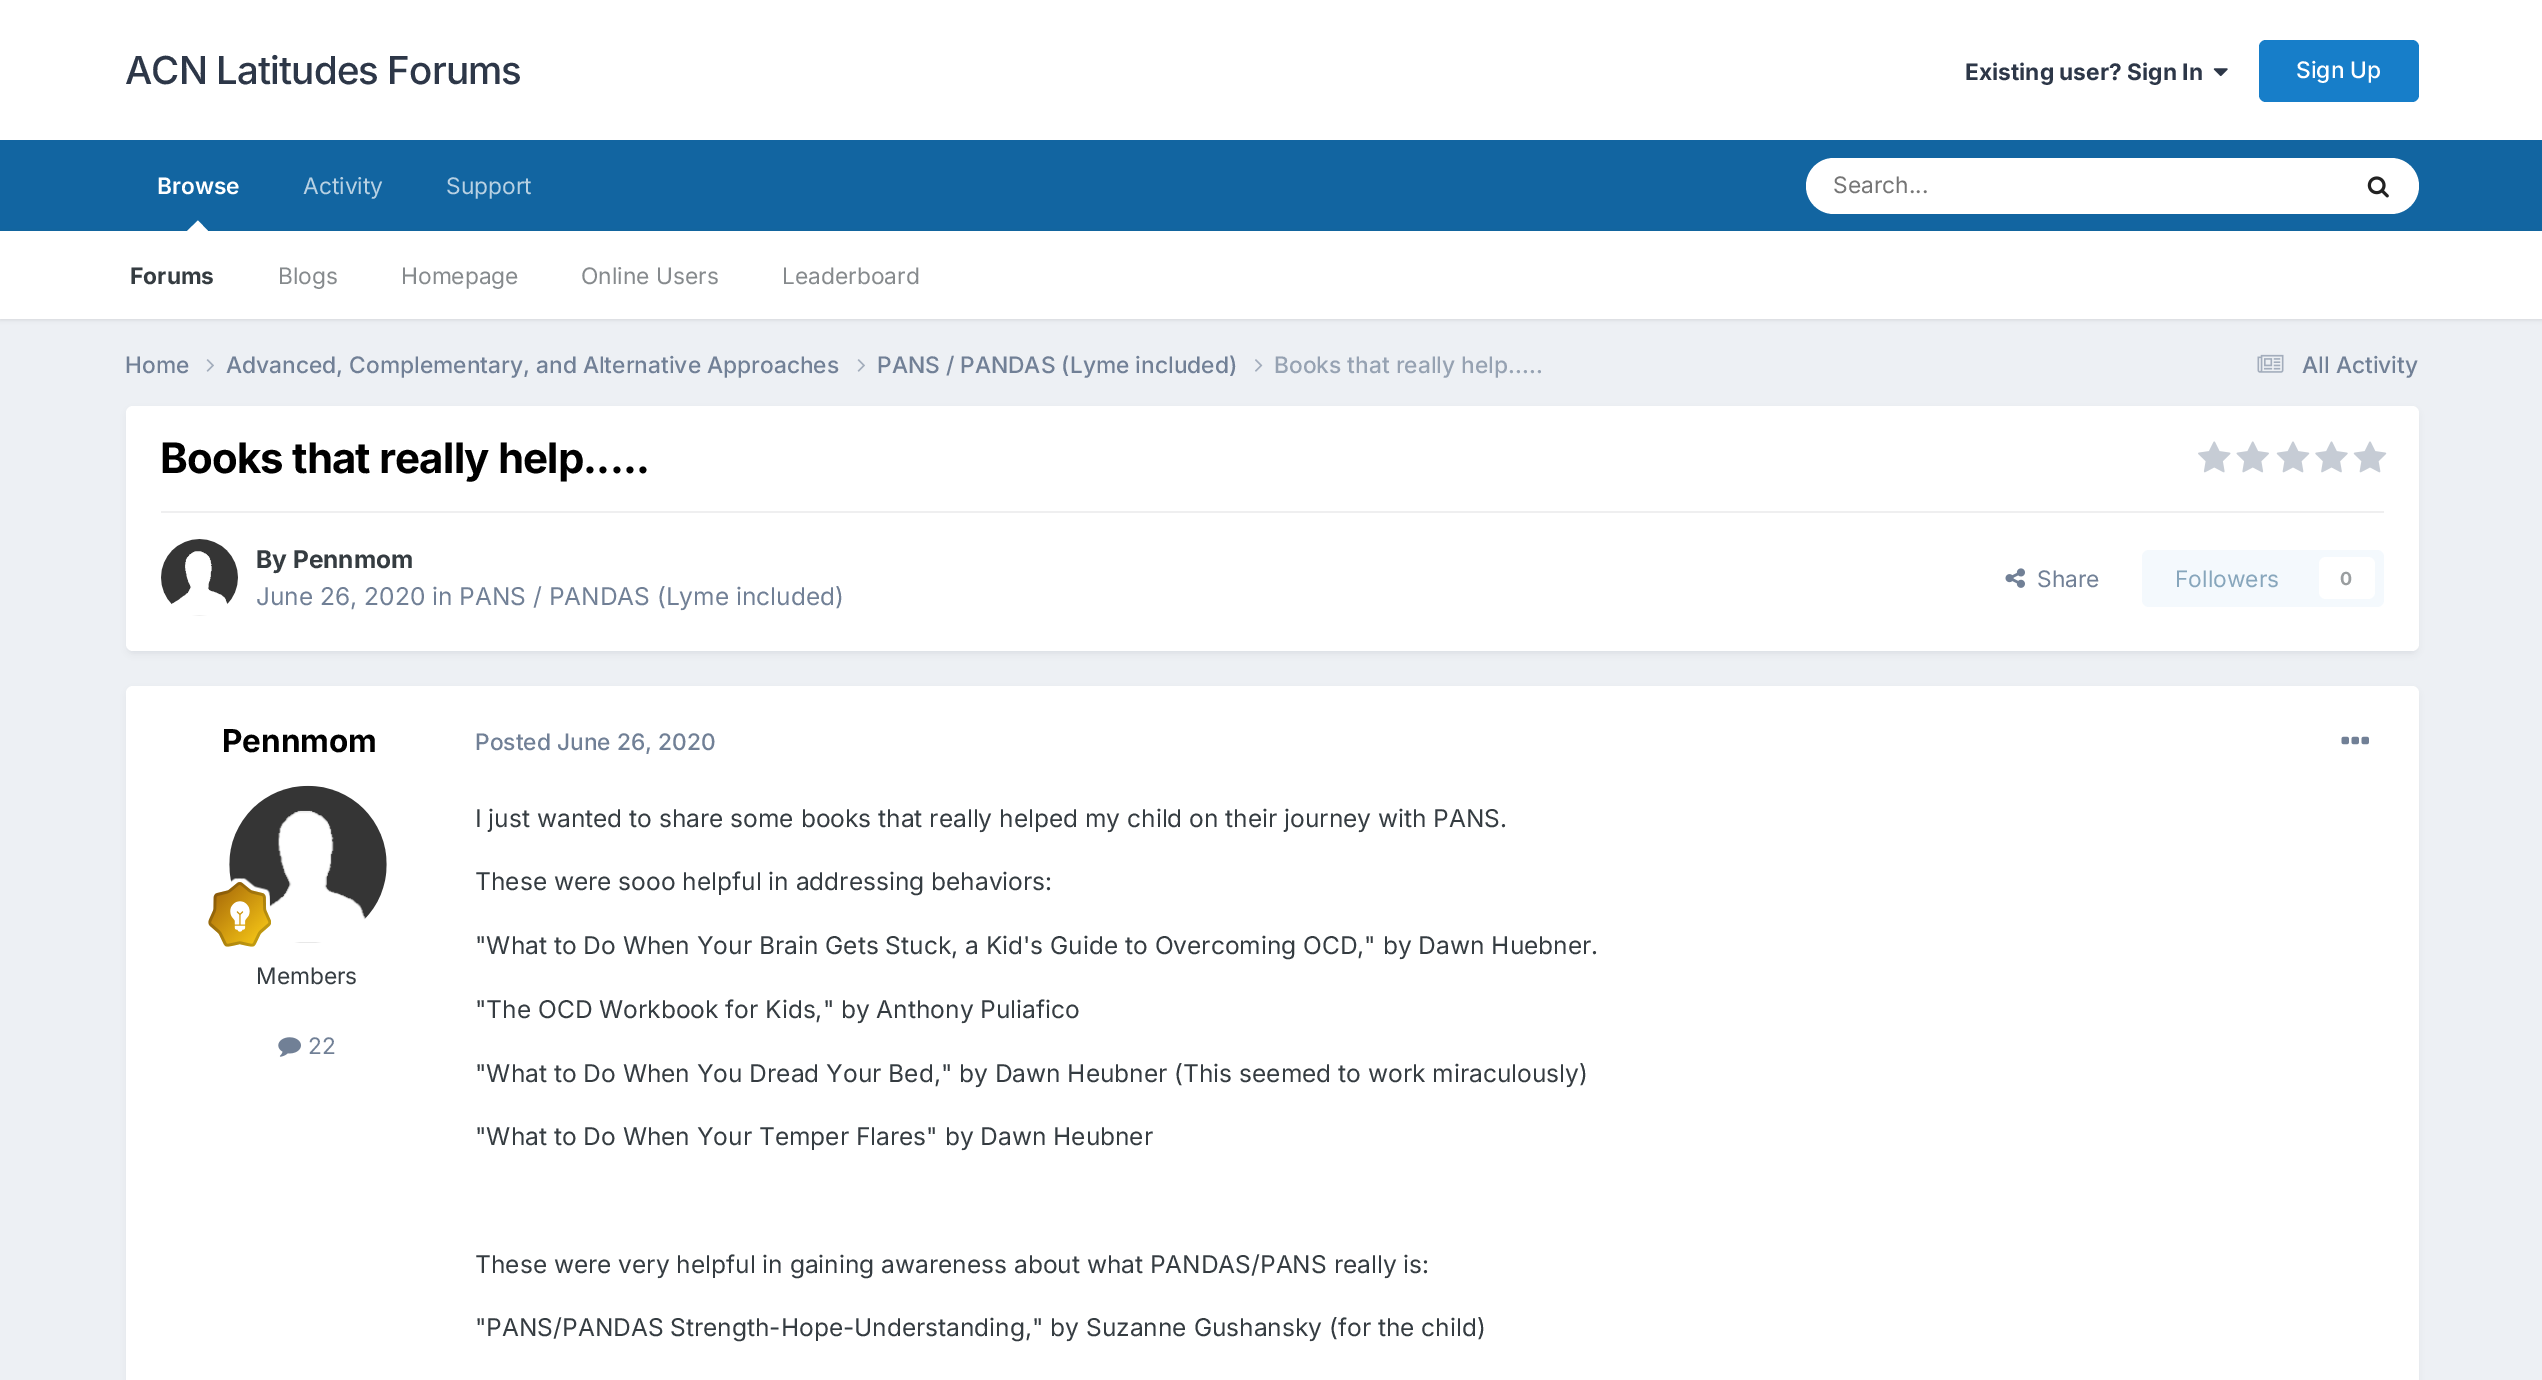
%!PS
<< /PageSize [2542 1380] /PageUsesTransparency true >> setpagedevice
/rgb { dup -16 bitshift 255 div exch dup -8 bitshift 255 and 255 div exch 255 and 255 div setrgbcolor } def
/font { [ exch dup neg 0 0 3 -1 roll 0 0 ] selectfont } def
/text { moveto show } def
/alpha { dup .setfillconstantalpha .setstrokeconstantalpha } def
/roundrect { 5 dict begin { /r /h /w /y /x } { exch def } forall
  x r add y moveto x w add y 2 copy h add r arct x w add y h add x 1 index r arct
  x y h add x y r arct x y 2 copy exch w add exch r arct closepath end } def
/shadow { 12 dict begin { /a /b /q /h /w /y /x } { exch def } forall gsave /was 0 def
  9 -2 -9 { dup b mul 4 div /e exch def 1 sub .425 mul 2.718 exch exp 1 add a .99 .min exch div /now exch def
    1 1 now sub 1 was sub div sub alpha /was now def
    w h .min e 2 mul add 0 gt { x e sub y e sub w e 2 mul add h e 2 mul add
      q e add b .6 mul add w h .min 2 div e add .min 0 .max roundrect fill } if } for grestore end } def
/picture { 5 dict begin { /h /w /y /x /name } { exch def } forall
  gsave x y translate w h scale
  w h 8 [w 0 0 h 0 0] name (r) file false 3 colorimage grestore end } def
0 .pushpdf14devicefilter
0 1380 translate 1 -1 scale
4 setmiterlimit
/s1 { /Inter-Bold 22.75 font 16#2D3748 rgb } def
/s2 { /Inter-Medium 22.75 font 16#FFFFFF rgb } def
/s3 { /Inter-Regular 22.75 font 16#B8D1E3 rgb } def
/s4 { /Inter-SemiBold 22.75 font 16#FFFFFF rgb } def
/s5 { /Inter-Bold 22.75 font 16#353C41 rgb } def
/s6 { /Inter-Regular 22.75 font 16#868A8D rgb } def
/s7 { /Inter-Regular 22.75 font 16#757575 rgb } def
/s8 { /Inter-Medium 22.75 font 16#718096 rgb } def
/s9 { /Inter-Medium 22.75 font 16#96A2B2 rgb } def
/s10 { /Inter-Bold 24.5 font 16#353C41 rgb } def
/s11 { /Inter-Regular 24.5 font 16#718096 rgb } def
/s12 { /Inter-Regular 22.75 font 16#718096 rgb } def
/s13 { /Inter-Regular 22.75 font 16#87A6BC rgb } def
/s14 { /Inter-Bold 18 font 16#9A9EA0 rgb } def
/s15 { /Inter-Bold 31.5 font 16#000000 rgb } def
/s16 { /Inter-Regular 22.75 font 16#353C41 rgb } def
/s17 { /Inter-Regular 24.5 font 16#353C41 rgb } def
16#EDF0F4 rgb
0 0 2542 1380 rectfill
16#FFFFFF rgb
0 0 2542 140 rectfill
/Inter-Medium 38.5 font
16#2D3748 rgb
125 84 moveto -0.9 0 (ACN Latitudes Forums) ashow
s1
(Existing user? Sign In) 1965 80 text
(pic1.raw) 2213 68 15 9 picture
16#177EC9 rgb
2259 40 160 62 7 roundrect fill
s2
(Sign Up) 2296 78 text
16#1265A1 rgb
0 140 2542 91 rectfill
s3
(Activity) 303 194 text
s4
(Browse) 157 194 text
16#000000 rgb
0 233 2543 87 0 2 0.1 shadow
16#FFFFFF rgb
208 231 moveto 187 231 lineto 198 220.5 lineto closepath fill
0 231 2542 88 rectfill
s5
(Forums) 130 284 text
s6
(Blogs) 278 284 text
(Homepage) 401 284 text
(Online Users) 581 284 text
(Leaderboard) 782 284 text
s3
(Support) 446 194 text
16#FFFFFF rgb
1806 158 613 56 28 roundrect fill
s7
(Search...) 1833 193 text
(pic2.raw) 2367 176 22 22 picture
s8
(Home) 125 373 text
(pic3.raw) 206 359 8 13 picture
(Advanced, Complementary, and Alternative Approaches) 226 373 text
(pic3.raw) 857 359 8 13 picture
(PANS / PANDAS \(Lyme included\)) 877 373 text
(pic4.raw) 1255 359 8 13 picture
s9
(Books that really help.....) 1274 373 text
(pic5.raw) 2257 354 27 19 picture
s8
(All Activity) 2302 373 text
16#2D3748 rgb
128 411 2289 242 5 3.5 0.1 shadow
16#FFFFFF rgb
126 406 2293 245 7 roundrect fill
/Inter-Bold 42 font
16#000000 rgb
160 473 moveto -0.85 0 (Books that really help.....) ashow
(pic6.raw) 2198 441 33 32 picture
(pic7.raw) 2236 441 33 32 picture
(pic8.raw) 2276 441 34 32 picture
(pic9.raw) 2315 441 33 32 picture
(pic8.raw) 2353 441 34 32 picture
16#EFEFF0 rgb
161 511 2223 2 rectfill
(pic10.raw) 161 539 77 77 picture
s10
(By Pennmom) 256 568 text
s11
(June 26, 2020 in PANS / PANDAS \(Lyme included\)) 256 605 text
(pic11.raw) 2005 568 20 20 picture
s12
(Share) 2037 587 text
16#F4F9FD rgb
2142 550 242 57 7 roundrect fill
s13
(Followers) 2175 587 text
16#FFFFFF rgb
2319 557 56 42 7 roundrect fill
s14
(0) 2340 585 text
16#2D3748 rgb
128 691 2289 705 5 3.5 0.1 shadow
16#FFFFFF rgb
126 686 2293 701 7 roundrect fill
s15
(Pennmom) 222 752 text
(pic12.raw) 229 785 158 158 picture
(pic13.raw) 208 878 63 69 picture
s16
(Members) 256 984 text
(pic14.raw) 278 1037 23 20 picture
s12
(22) 308 1054 text
s8
(Posted June 26, 2020) 475 750 text
(pic15.raw) 2341 736 28 9 picture
s17
(I just wanted to share some books that really helped my child on their journey with PANS.) 475 827 text
(These were sooo helpful in addressing behaviors:) 475 890 text
("What to Do When Your Brain Gets Stuck, a Kid's Guide to Overcoming OCD," by Dawn Huebner.) 475 954 text
("The OCD Workbook for Kids," by Anthony Puliafico) 475 1018 text
("What to Do When You Dread Your Bed," by Dawn Heubner \(This seemed to work miraculously\)) 475 1082 text
("What to Do When Your Temper Flares" by Dawn Heubner) 475 1145 text
(These were very helpful in gaining awareness about what PANDAS/PANS really is:) 475 1273 text
("PANS/PANDAS Strength-Hope-Understanding," by Suzanne Gushansky \(for the child\)) 475 1336 text
.poppdf14devicefilter showpage
